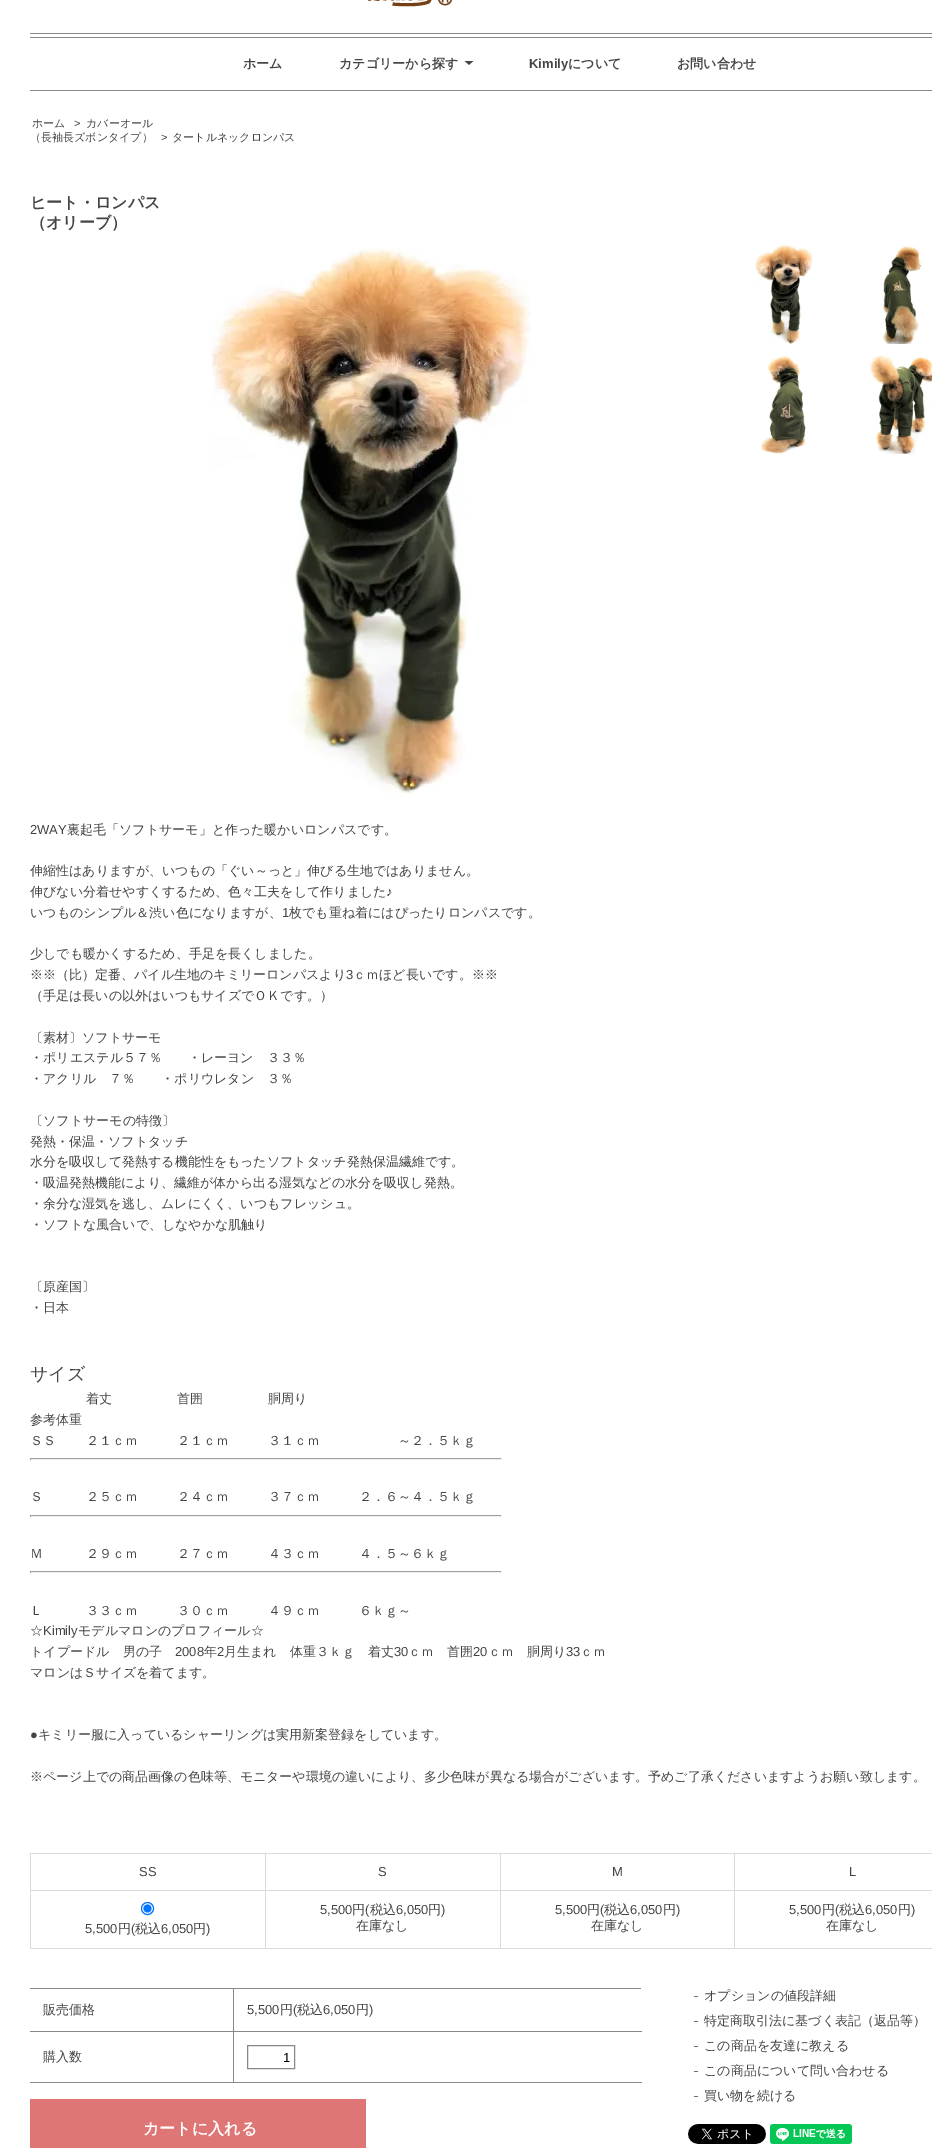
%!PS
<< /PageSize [932 2148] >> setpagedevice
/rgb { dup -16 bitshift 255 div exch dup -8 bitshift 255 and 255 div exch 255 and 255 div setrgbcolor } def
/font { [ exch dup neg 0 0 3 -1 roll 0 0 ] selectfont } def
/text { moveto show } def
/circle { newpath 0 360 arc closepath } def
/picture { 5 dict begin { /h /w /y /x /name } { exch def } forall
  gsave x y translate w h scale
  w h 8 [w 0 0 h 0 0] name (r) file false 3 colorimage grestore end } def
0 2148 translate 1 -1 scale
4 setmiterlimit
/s1 { /WenQuanYiZenHei-Bold 13 font 16#444444 rgb } def
/s2 { /LiberationSans-Bold 13 font 16#444444 rgb } def
/s3 { /WenQuanYiZenHei-Medium 11 font 16#444444 rgb } def
/s4 { /LiberationSans-Regular 11 font 16#444444 rgb } def
/s5 { /WenQuanYiZenHei-Bold 16 font 16#444444 rgb } def
/s6 { /LiberationSans-Regular 13 font 16#444444 rgb } def
/s7 { /WenQuanYiZenHei-Medium 13 font 16#444444 rgb } def
/s8 { /WenQuanYiZenHei-Medium 18 font 16#444444 rgb } def
/s9 { /LiberationSans-Regular 13 font 16#000000 rgb } def
/s10 { /WenQuanYiZenHei-Bold 16 font 16#FFFFFF rgb } def
16#FFFFFF rgb
0 0 932 2148 rectfill
16#888888 rgb
30 33 902 1 rectfill
(pic1.raw) 368 0 84 7 picture
30 37 902 1 rectfill
30 90 902 1 rectfill
s1
(ホーム) 243 68 text
(カテゴリーから探す) 339 68 text
(pic2.raw) 464 61 10 4 picture
s2
(Kimily) 529 68 text
s1
(について) 568 68 text
(お問い合わせ) 677 68 text
s3
(ホーム) 32 127 text
s4
(>) 74 127 text
s3
(カバーオール) 86 127 text
(（長袖長ズボンタイプ）) 30 141 text
s4
(>) 161 141 text
s3
(タートルネックロンパス) 172 141 text
s5
(ヒート・ロンパス) 30 208 text
(（オリーブ）) 30 228 text
(pic3.raw) 211 247 320 547 picture
(pic4.raw) 755 244 58 100 picture
(pic5.raw) 882 246 40 98 picture
(pic6.raw) 761 356 45 98 picture
(pic7.raw) 870 355 62 99 picture
s6
(2WAY) 30 834 text
s7
(裏起毛「ソフトサーモ」と作った暖かいロンパスです。) 67 834 text
(伸縮性はありますが、いつもの「ぐい～っと」伸びる生地ではありません。) 30 875 text
(伸びない分着せやすくするため、色々工夫をして作りました) 30 896 text
s6
(♪) 386 896 text
s7
(いつものシンプル＆渋い色になりますが、) 30 917 text
s6
(1) 282 917 text
s7
(枚でも重ね着にはぴったりロンパスです。) 289 917 text
(少しでも暖かくするため、手足を長くしました。) 30 958 text
(※※（比）定番、パイル生地のキミリーロンパスより) 30 979 text
s6
(3) 346 979 text
s7
(ｃｍほど長いです。※※) 353 979 text
(（手足は長いの以外はいつもサイズでＯＫです。）) 30 1000 text
(〔素材〕ソフトサーモ) 30 1042 text
(・ポリエステル５７％　　・レーヨン　３３％) 30 1062 text
(・アクリル　７％　　・ポリウレタン　３％) 30 1083 text
(〔ソフトサーモの特徴〕) 30 1125 text
(発熱・保温・ソフトタッチ) 30 1146 text
(水分を吸収して発熱する機能性をもったソフトタッチ発熱保温繊維です。) 30 1166 text
(・吸温発熱機能により、繊維が体から出る湿気などの水分を吸収し発熱。) 30 1187 text
(・余分な湿気を逃し、ムレにくく、いつもフレッシュ。) 30 1208 text
(・ソフトな風合いで、しなやかな肌触り) 30 1229 text
(〔原産国〕) 30 1291 text
(・日本) 30 1312 text
s8
(サイズ) 30 1380 text
s7
(着丈　　　　　首囲　　　　　胴周り) 86 1403 text
(参考体重) 30 1424 text
(ＳＳ) 30 1445 text
(２１ｃｍ　　　２１ｃｍ　　　３１ｃｍ　　　　　　～２．５ｋｇ) 86 1445 text
16#9F9F9F rgb
30 1458 472 1 rectfill
16#EEEEEE rgb
501 1458 1 2 rectfill
30 1459 472 1 rectfill
16#9F9F9F rgb
30 1458 1 2 rectfill
s7
(Ｓ) 30 1501 text
(２５ｃｍ　　　２４ｃｍ　　　３７ｃｍ　　　２．６～４．５ｋｇ) 86 1501 text
16#9F9F9F rgb
30 1515 472 1 rectfill
16#EEEEEE rgb
501 1515 1 2 rectfill
30 1516 472 1 rectfill
16#9F9F9F rgb
30 1515 1 2 rectfill
s7
(Ｍ) 30 1558 text
(２９ｃｍ　　　２７ｃｍ　　　４３ｃｍ　　　４．５～６ｋｇ) 86 1558 text
16#9F9F9F rgb
30 1571 472 1 rectfill
16#EEEEEE rgb
501 1571 1 2 rectfill
30 1572 472 1 rectfill
16#9F9F9F rgb
30 1571 1 2 rectfill
s7
(Ｌ) 30 1615 text
(３３ｃｍ　　　３０ｃｍ　　　４９ｃｍ　　　６ｋｇ～) 86 1615 text
(☆) 30 1635 text
s6
(Kimily) 43 1635 text
s7
(モデルマロンのプロフィール☆) 78 1635 text
(トイプードル　男の子) 30 1656 text
s6
(2008) 175 1656 text
s7
(年) 204 1656 text
s6
(2) 217 1656 text
s7
(月生まれ　体重３ｋｇ　着丈) 224 1656 text
s6
(30) 394 1656 text
s7
(ｃｍ　首囲) 408 1656 text
s6
(20) 473 1656 text
s7
(ｃｍ　胴周り) 488 1656 text
s6
(33) 566 1656 text
s7
(ｃｍ) 580 1656 text
(マロンはＳサイズを着てます。) 30 1677 text
s6
(●) 30 1739 text
s7
(キミリー服に入っているシャーリングは実用新案登録をしています。) 38 1739 text
(※ページ上での商品画像の色味等、モニターや環境の違いにより、多少色味が異なる場合がございます。予めご了承くださいますようお願い致します。) 30 1781 text
16#DADADA rgb
30 1948 902 1 rectfill
30 1853 1 96 rectfill
30 1853 902 1 rectfill
30 1890 902 1 rectfill
265 1890 1 59 rectfill
265 1853 1 38 rectfill
s6
(SS) 139 1876 text
16#DADADA rgb
500 1890 1 59 rectfill
500 1853 1 38 rectfill
s6
(S) 378 1876 text
16#DADADA rgb
734 1890 1 59 rectfill
734 1853 1 38 rectfill
s6
(M) 612 1876 text
(L) 849 1876 text
16#0075FF rgb
147.5 1908.5 6 circle stroke
147.5 1908.5 4 circle fill
s6
(5,500) 85 1933 text
s7
(円) 118 1933 text
s6
(\() 131 1933 text
s7
(税込) 135 1933 text
s6
(6,050) 161 1933 text
s7
(円) 193 1933 text
s6
(\)) 206 1933 text
(5,500) 320 1914 text
s7
(円) 352 1914 text
s6
(\() 365 1914 text
s7
(税込) 370 1914 text
s6
(6,050) 396 1914 text
s7
(円) 428 1914 text
s6
(\)) 441 1914 text
s7
(在庫なし) 356 1930 text
s6
(5,500) 555 1914 text
s7
(円) 587 1914 text
s6
(\() 600 1914 text
s7
(税込) 604 1914 text
s6
(6,050) 630 1914 text
s7
(円) 663 1914 text
s6
(\)) 676 1914 text
s7
(在庫なし) 591 1930 text
s6
(5,500) 789 1914 text
s7
(円) 822 1914 text
s6
(\() 835 1914 text
s7
(税込) 839 1914 text
s6
(6,050) 865 1914 text
s7
(円) 898 1914 text
s6
(\)) 911 1914 text
s7
(在庫なし) 826 1930 text
16#888888 rgb
30 1988 611 1 rectfill
233 2082 409 1 rectfill
233 2031 1 52 rectfill
233 2031 409 1 rectfill
233 1988 1 44 rectfill
30 2031 204 1 rectfill
s7
(販売価格) 43 2014 text
s6
(5,500) 247 2014 text
s7
(円) 280 2014 text
s6
(\() 293 2014 text
s7
(税込) 297 2014 text
s6
(6,050) 323 2014 text
s7
(円) 356 2014 text
s6
(\)) 369 2014 text
16#888888 rgb
30 2082 204 1 rectfill
s7
(購入数) 43 2061 text
16#888888 rgb
247.5 2045.5 47 23 rectstroke
s9
(1) 283 2062 text
16#DF7676 rgb
30 2099 336 49 rectfill
s10
(カートに入れる) 143 2134 text
16#6E6E6E rgb
694 1996 4 1 rectfill
s7
(オプションの値段詳細) 704 2000 text
16#6E6E6E rgb
694 2021 4 1 rectfill
s7
(特定商取引法に基づく表記（返品等）) 704 2025 text
16#6E6E6E rgb
694 2046 4 1 rectfill
s7
(この商品を友達に教える) 704 2050 text
16#6E6E6E rgb
694 2071 4 1 rectfill
s7
(この商品について問い合わせる) 704 2075 text
16#6E6E6E rgb
694 2096 4 1 rectfill
s7
(買い物を続ける) 704 2100 text
(pic8.raw) 688 2124 78 20 picture
(pic9.raw) 770 2124 82 20 picture
showpage
